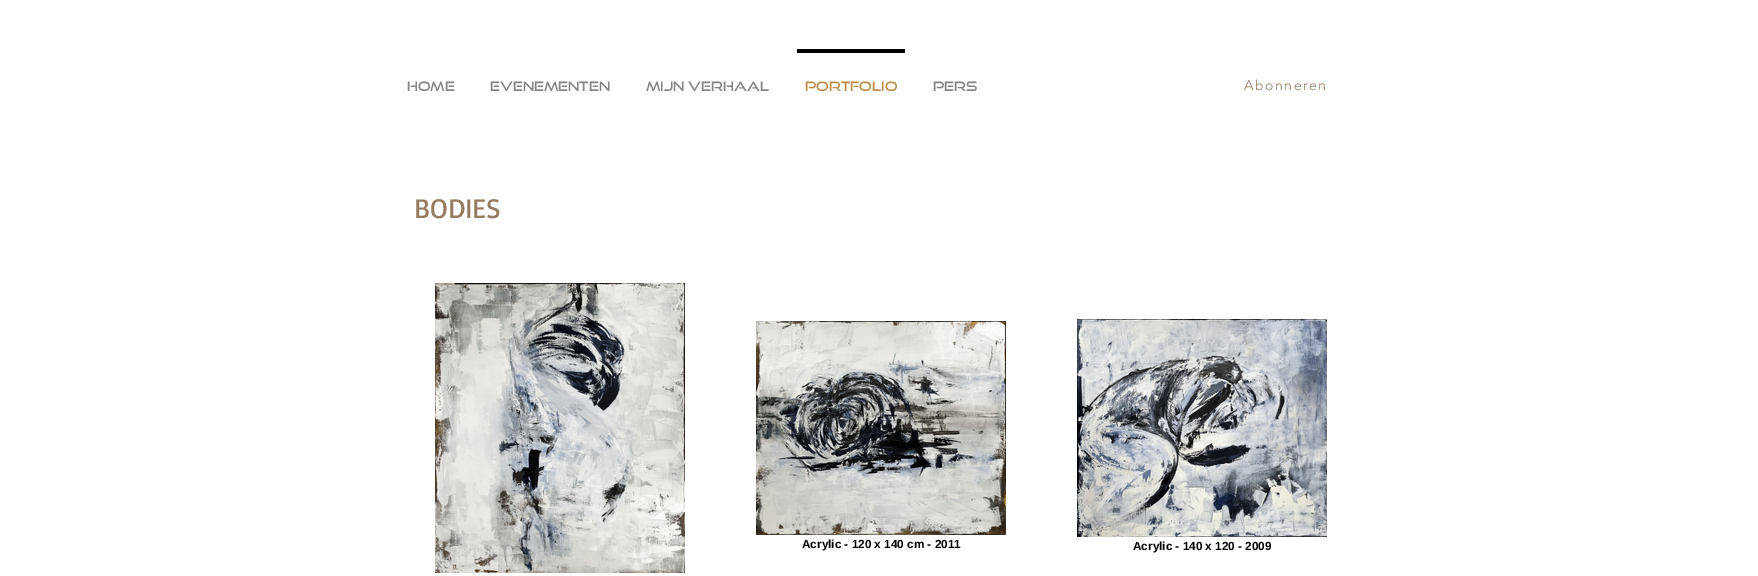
%!PS
<< /PageSize [1758 576] >> setpagedevice
/rgb { dup -16 bitshift 255 div exch dup -8 bitshift 255 and 255 div exch 255 and 255 div setrgbcolor } def
/font { [ exch dup neg 0 0 3 -1 roll 0 0 ] selectfont } def
/text { moveto show } def
/picture { 5 dict begin { /h /w /y /x /name } { exch def } forall
  gsave x y translate w h scale
  w h 8 [w 0 0 h 0 0] name (r) file false 3 colorimage grestore end } def
0 576 translate 1 -1 scale
4 setmiterlimit
/s1 { /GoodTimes-Regular 13 font 16#858585 rgb } def
/s2 { /GoodTimes-Regular 13 font 16#BD8F4A rgb } def
/s3 { /Basic-Regular 28 font 16#957B5F rgb } def
/s4 { /LiberationSans-Bold 11.75 font 16#000000 rgb } def
16#FFFFFF rgb
0 0 1758 576 rectfill
s1
(HOME) 407 91 text
(EVENEMENTEN) 490 91 text
(MIJN VERHAAL) 646 91 text
16#000000 rgb
797 49 108 4 rectfill
s2
(PORTFOLIO) 805 91 text
s1
(PERS) 933 91 text
/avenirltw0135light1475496-Light 14 font
16#957B5F rgb
1244 90 moveto 1.5 0 (Abonneren) ashow
s3
(BODIES) 414 218 text
(pic1.raw) 435 283 250 290 picture
(pic2.raw) 756 321 250 214 picture
s4
(Acrylic - 120 x 140 cm - 2011) 802 548 text
(pic3.raw) 1077 319 250 218 picture
(Acrylic - 140 x 120 - 2009) 1133 550 text
showpage
